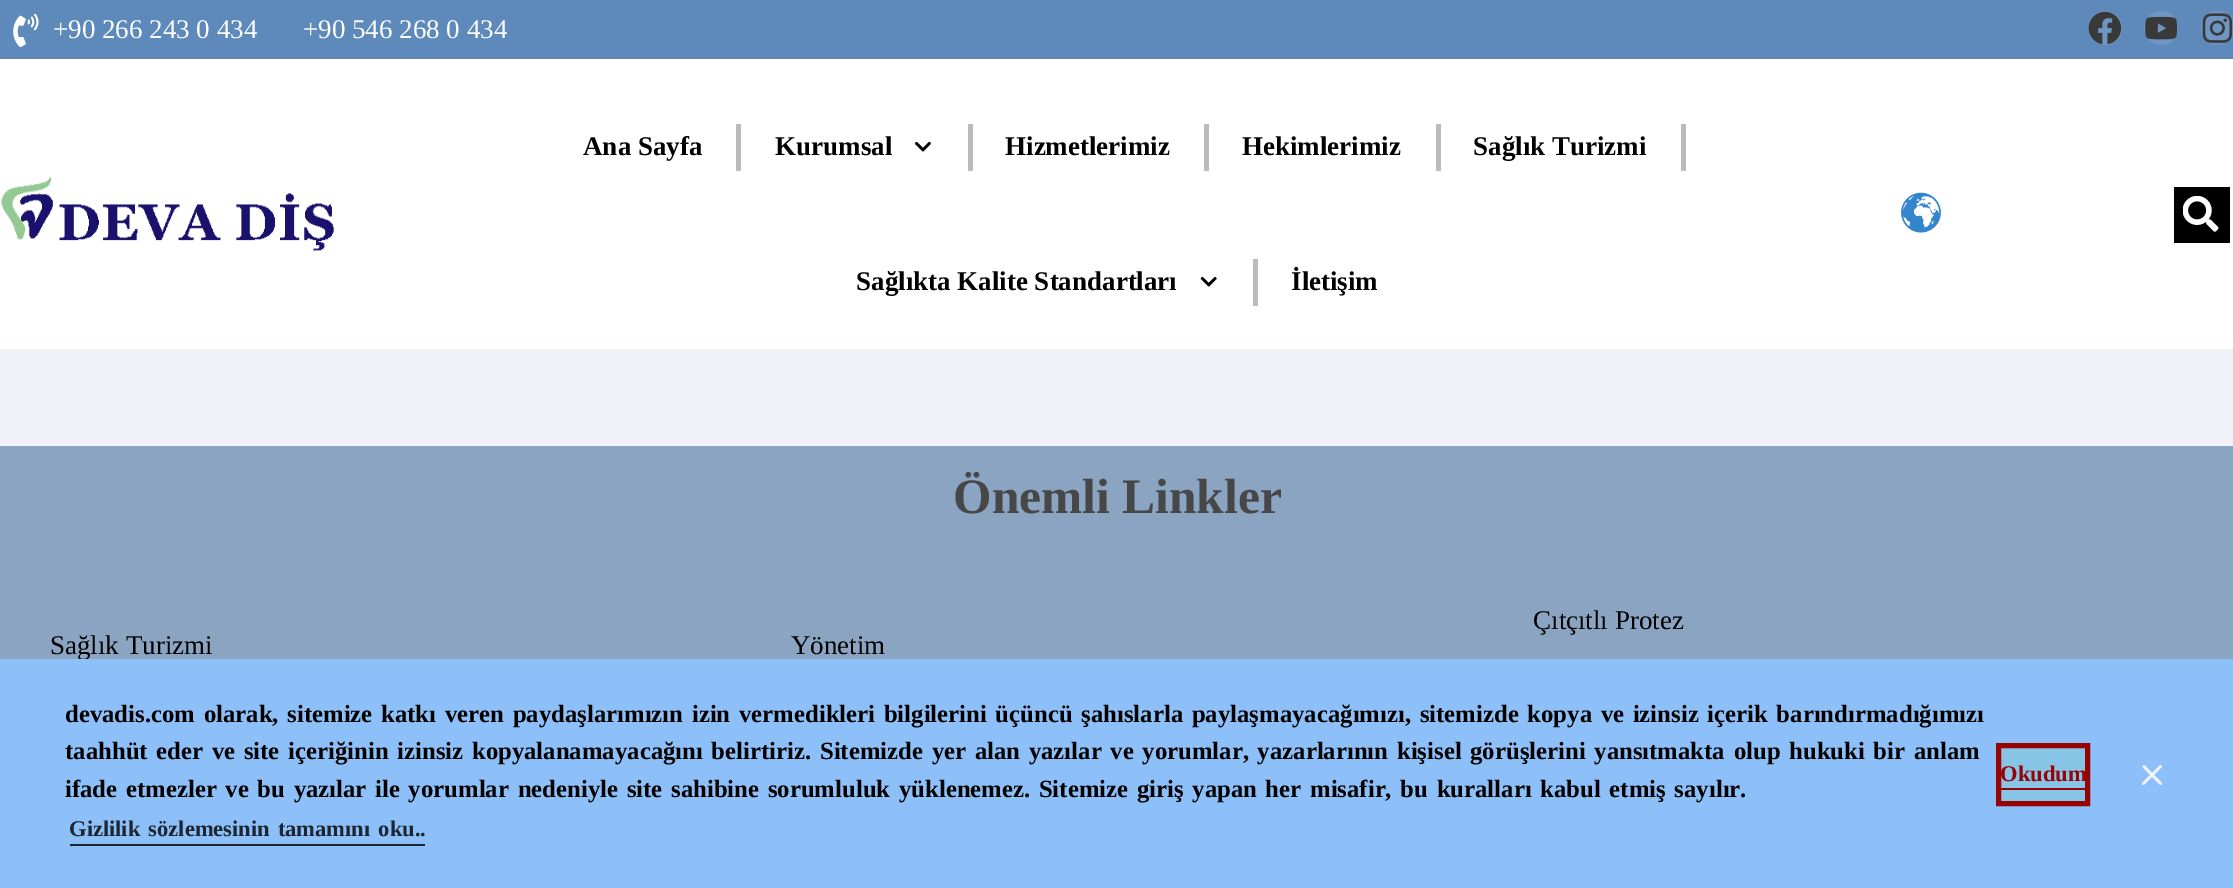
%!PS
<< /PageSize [2233 888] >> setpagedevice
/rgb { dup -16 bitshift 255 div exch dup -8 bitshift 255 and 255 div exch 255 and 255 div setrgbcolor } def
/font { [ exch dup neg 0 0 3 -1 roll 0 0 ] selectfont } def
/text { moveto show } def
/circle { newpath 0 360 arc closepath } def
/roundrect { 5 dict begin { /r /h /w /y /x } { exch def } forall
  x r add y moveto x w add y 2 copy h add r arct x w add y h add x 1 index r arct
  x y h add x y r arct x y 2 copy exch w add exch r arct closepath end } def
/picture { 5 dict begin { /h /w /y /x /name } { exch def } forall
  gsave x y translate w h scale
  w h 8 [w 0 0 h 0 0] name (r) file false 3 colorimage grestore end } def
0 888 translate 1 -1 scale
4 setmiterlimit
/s1 { /LiberationSerif-Regular 27 font 16#FFFFFF rgb } def
/s2 { /LiberationSerif-Bold 27 font 16#000000 rgb } def
/s3 { /LiberationSerif-Bold 49.5 font 16#474748 rgb } def
/s4 { /LiberationSerif-Regular 27 font 16#000000 rgb } def
/s5 { /LiberationSerif-Bold 22.5 font 16#970202 rgb } def
16#EFF2F7 rgb
0 0 2233 888 rectfill
16#5D89BB rgb
0 0 2233 59 rectfill
(pic1.raw) 13 14 26 33 picture
s1
(+90 266 243 0 434) 53 38 text
(+90 546 268 0 434) 303 38 text
16#6F96C2 rgb
2105 28 17 circle fill
(pic2.raw) 2088 11 34 34 picture
2161 28 17 circle fill
(pic3.raw) 2145 16 33 24 picture
2201 11 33 34 16.5 roundrect fill
(pic4.raw) 2202 13 31 30 picture
16#FFFFFF rgb
0 59 2233 290 rectfill
(pic5.raw) 1 177 334 75 picture
s2
(Ana Sayfa) 583 155 text
16#BBBBBB rgb
736 124 5 47 rectfill
s2
(Kurumsal) 775 155 text
(pic6.raw) 914 141 17 11 picture
16#BBBBBB rgb
968 124 5 47 rectfill
s2
(Hizmetlerimiz) 1005 155 text
16#BBBBBB rgb
1204 124 5 47 rectfill
s2
(Hekimlerimiz) 1242 155 text
16#BBBBBB rgb
1436 124 5 47 rectfill
s2
(Sağlık Turizmi) 1473 155 text
16#BBBBBB rgb
1681 124 5 47 rectfill
s2
(Sağlıkta Kalite Standartları) 856 290 text
(pic7.raw) 1200 276 17 11 picture
16#BBBBBB rgb
1253 259 5 47 rectfill
s2
(İletişim) 1291 290 text
(pic8.raw) 1901 192 40 41 picture
2174 187 56 56 rectfill
(pic9.raw) 2183 196 36 36 picture
16#8AA4C1 rgb
0 446 2233 213 rectfill
s3
(Önemli Linkler) 953 513 text
s4
(Çıtçıtlı Protez) 1533 629 text
(Sağlık Turizmi) 50 654 text
(Yönetim) 791 654 text
16#8DC0F8 rgb
0 659 2233 229 rectfill
/LiberationSerif-Bold 24.75 font
16#000000 rgb
65 722 moveto 2.5 0 32 (devadis.com olarak, sitemize katkı veren paydaşlarımızın izin vermedikleri bilgilerini üçüncü şahıslarla paylaşmayacağımızı, sitemizde kopya ve izinsiz içerik barındırmadığımızı) widthshow
65 759 moveto 2.5 0 32 (taahhüt eder ve site içeriğinin izinsiz kopyalanamayacağını belirtiriz. Sitemizde yer alan yazılar ve yorumlar, yazarlarının kişisel görüşlerini yansıtmakta olup hukuki bir anlam) widthshow
65 797 moveto 2.5 0 32 (ifade etmezler ve bu yazılar ile yorumlar nedeniyle site sahibine sorumluluk yüklenemez. Sitemize giriş yapan her misafir, bu kuralları kabul etmiş sayılır.) widthshow
/LiberationSerif-Bold 22.5 font
16#1C2632 rgb
69 836 moveto 2.5 0 32 (Gizlilik sözlemesinin tamamını oku..) widthshow
70 844 355 2 rectfill
16#87C5E7 rgb
1998.5 745.5 moveto 2087.5 745.5 lineto 2087.5 803.5 lineto 1998.5 803.5 lineto closepath gsave fill grestore
16#970202 rgb
5 setlinewidth
stroke
(Okudum) 2000 781 text
2000 788 86 2 rectfill
16#EFF2F7 rgb
2.8 setlinewidth
1 setlinecap
1 setlinejoin
2143.5 783.5 moveto 2160.5 766.5 lineto 2160.5 783.5 moveto 2144 766.5 lineto stroke
showpage
